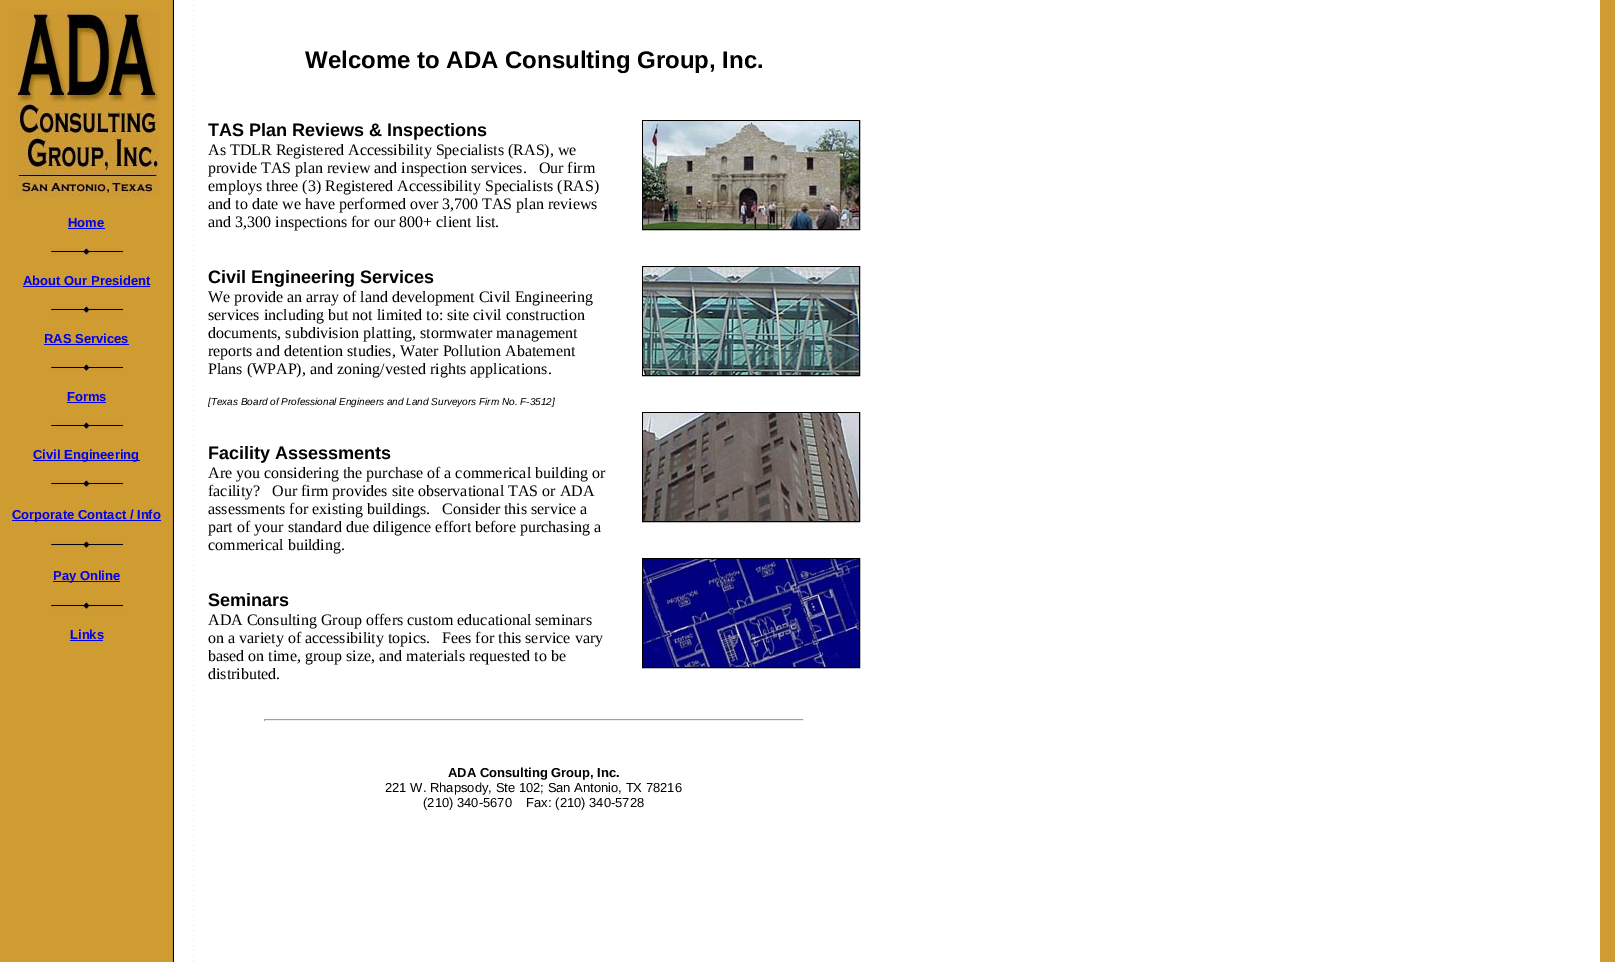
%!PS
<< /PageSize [1615 962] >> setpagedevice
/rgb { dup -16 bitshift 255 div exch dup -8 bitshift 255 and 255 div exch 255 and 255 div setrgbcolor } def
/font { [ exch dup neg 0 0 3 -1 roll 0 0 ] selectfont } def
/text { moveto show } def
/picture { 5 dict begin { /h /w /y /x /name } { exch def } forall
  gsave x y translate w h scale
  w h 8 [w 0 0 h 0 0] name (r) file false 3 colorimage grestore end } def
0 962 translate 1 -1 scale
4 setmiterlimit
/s1 { /LiberationSans-Bold 13 font 16#0000EE rgb } def
/s2 { /LiberationSans-Bold 24 font 16#000000 rgb } def
/s3 { /LiberationSans-Bold 18 font 16#000000 rgb } def
/s4 { /LiberationSerif-Regular 16 font 16#000000 rgb } def
/s5 { /LiberationSans-Italic 10 font 16#000000 rgb } def
/s6 { /LiberationSans-Bold 13 font 16#000000 rgb } def
/s7 { /LiberationSans-Regular 13 font 16#000000 rgb } def
16#FFFFFF rgb
0 0 1615 962 rectfill
(pic1.raw) 0 0 1615 962 picture
(pic2.raw) 15 10 144 187 picture
s1
(Home) 68 227 text
68 228 37 1 rectfill
(pic3.raw) 51 248 72 7 picture
(About Our President) 23 285 text
23 286 127 1 rectfill
(pic3.raw) 51 306 72 7 picture
(RAS Services) 44 343 text
44 344 85 1 rectfill
(pic3.raw) 51 364 72 7 picture
(Forms) 67 401 text
67 402 39 1 rectfill
(pic3.raw) 51 422 72 7 picture
33 460 107 1 rectfill
(Civil Engineering) 33 459 text
(pic3.raw) 51 480 72 7 picture
12 520 149 1 rectfill
(Corporate Contact / Info) 12 519 text
(pic3.raw) 51 541 72 7 picture
53 581 67 1 rectfill
(Pay Online) 53 580 text
(pic3.raw) 51 602 72 7 picture
(Links) 70 639 text
70 640 33 1 rectfill
s2
(Welcome to ADA Consulting Group, Inc.) 305 68 text
s3
(TAS Plan Reviews & Inspections) 208 136 text
s4
(As TDLR Registered Accessibility Specialists \(RAS\), we) 208 155 text
(provide TAS plan review and inspection services.   Our firm) 208 173 text
(employs three \(3\) Registered Accessibility Specialists \(RAS\)) 208 191 text
(and to date we have performed over 3,700 TAS plan reviews) 208 209 text
(and 3,300 inspections for our 800+ client list.) 208 227 text
s3
(Civil Engineering Services) 208 283 text
s4
(We provide an array of land development Civil Engineering) 208 302 text
(services including but not limited to: site civil construction) 208 320 text
(documents, subdivision platting, stormwater management) 208 338 text
(reports and detention studies, Water Pollution Abatement) 208 356 text
(Plans \(WPAP\), and zoning/vested rights applications.) 208 374 text
s5
([Texas Board of Professional Engineers and Land Surveyors Firm No. F-3512]) 208 405 text
s3
(Facility Assessments) 208 459 text
s4
(Are you considering the purchase of a commerical building or) 208 478 text
(facility?) 208 496 text
(Our firm provides site observational TAS or ADA) 272 496 text
(assessments for existing buildings.   Consider this service a) 208 514 text
(part of your standard due diligence effort before purchasing a) 208 532 text
(commerical building.) 208 550 text
s3
(Seminars) 208 606 text
s4
(ADA Consulting Group offers custom educational seminars) 208 625 text
(on a variety of accessibility topics.   Fees for this service vary) 208 643 text
(based on time, group size, and materials requested to be) 208 661 text
(distributed.) 208 679 text
642.5 120.5 217 109 rectstroke
(pic4.raw) 643 121 216 108 picture
642.5 266.5 217 109 rectstroke
(pic5.raw) 643 267 216 108 picture
642.5 412.5 217 109 rectstroke
(pic6.raw) 643 413 216 108 picture
642.5 558.5 217 109 rectstroke
(pic7.raw) 643 559 216 108 picture
16#9F9F9F rgb
264 719 540 1 rectfill
16#EEEEEE rgb
803 719 1 2 rectfill
264 720 540 1 rectfill
16#9F9F9F rgb
264 719 1 2 rectfill
s6
(ADA Consulting Group, Inc.) 448 777 text
s7
(221 W. Rhapsody, Ste 102; San Antonio, TX 78216) 385 792 text
(\(210\) 340-5670    Fax: \(210\) 340-5728) 423 807 text
showpage
